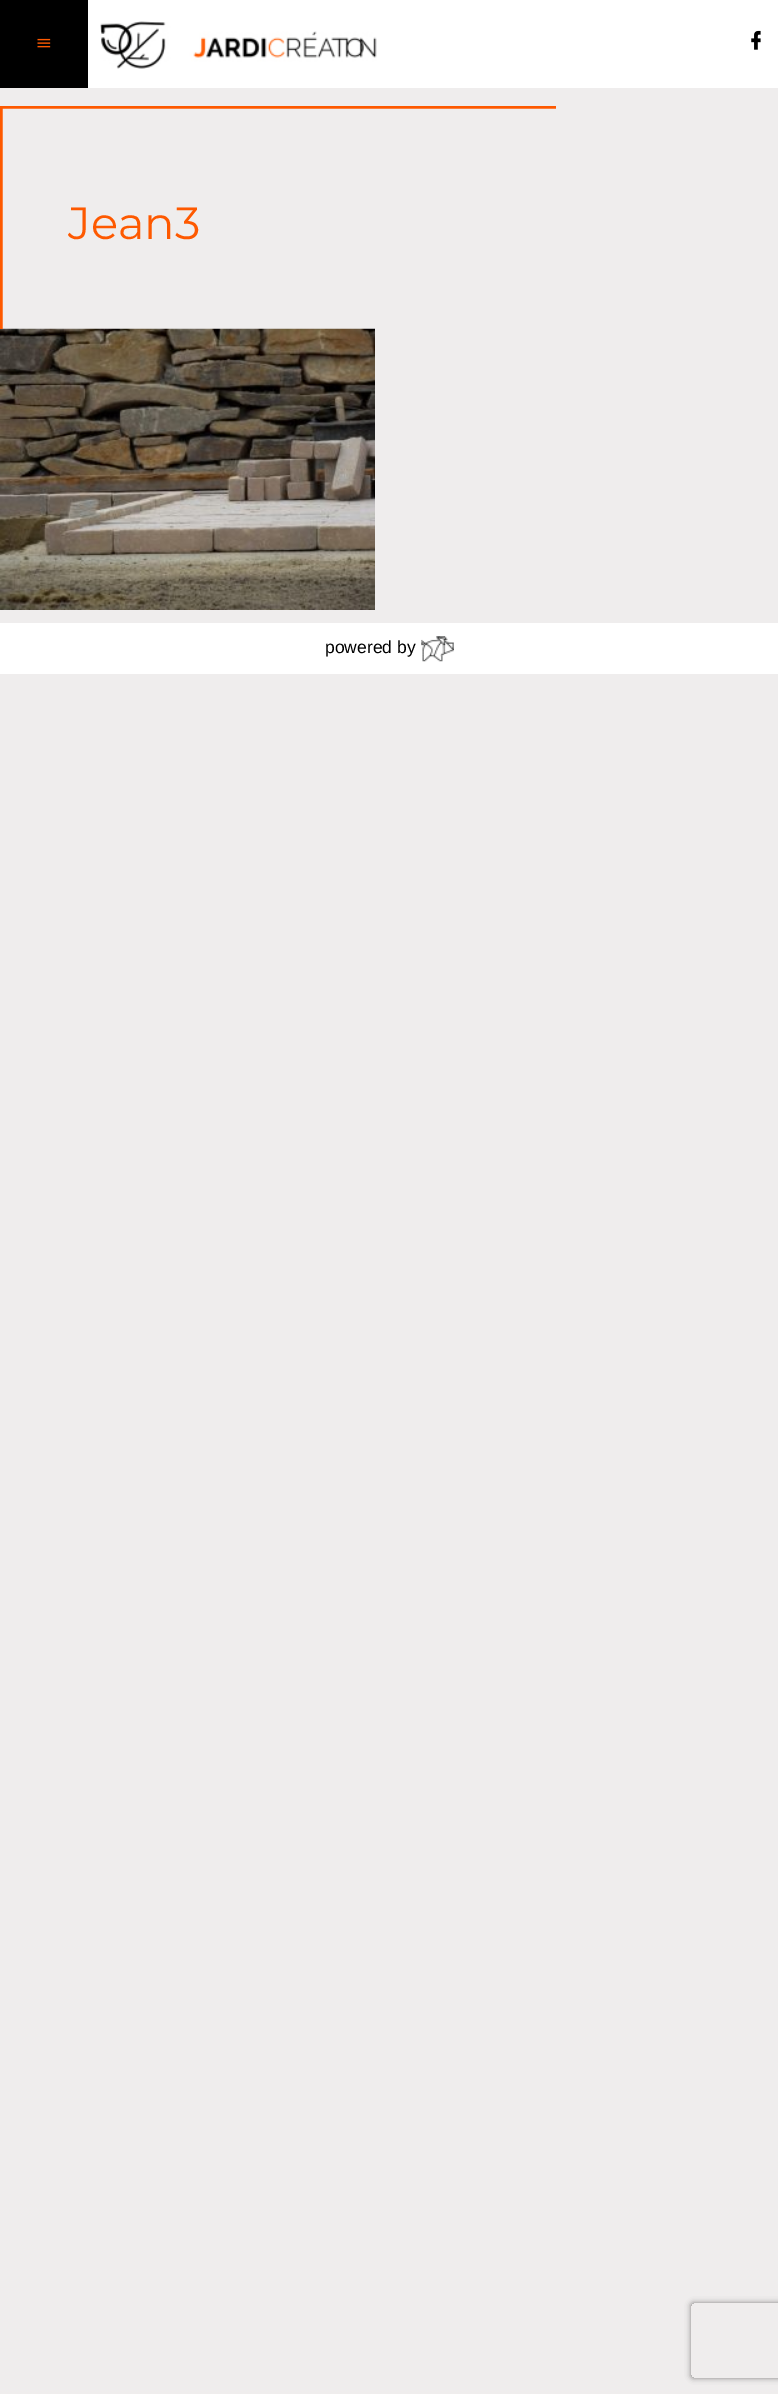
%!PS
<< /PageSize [778 2394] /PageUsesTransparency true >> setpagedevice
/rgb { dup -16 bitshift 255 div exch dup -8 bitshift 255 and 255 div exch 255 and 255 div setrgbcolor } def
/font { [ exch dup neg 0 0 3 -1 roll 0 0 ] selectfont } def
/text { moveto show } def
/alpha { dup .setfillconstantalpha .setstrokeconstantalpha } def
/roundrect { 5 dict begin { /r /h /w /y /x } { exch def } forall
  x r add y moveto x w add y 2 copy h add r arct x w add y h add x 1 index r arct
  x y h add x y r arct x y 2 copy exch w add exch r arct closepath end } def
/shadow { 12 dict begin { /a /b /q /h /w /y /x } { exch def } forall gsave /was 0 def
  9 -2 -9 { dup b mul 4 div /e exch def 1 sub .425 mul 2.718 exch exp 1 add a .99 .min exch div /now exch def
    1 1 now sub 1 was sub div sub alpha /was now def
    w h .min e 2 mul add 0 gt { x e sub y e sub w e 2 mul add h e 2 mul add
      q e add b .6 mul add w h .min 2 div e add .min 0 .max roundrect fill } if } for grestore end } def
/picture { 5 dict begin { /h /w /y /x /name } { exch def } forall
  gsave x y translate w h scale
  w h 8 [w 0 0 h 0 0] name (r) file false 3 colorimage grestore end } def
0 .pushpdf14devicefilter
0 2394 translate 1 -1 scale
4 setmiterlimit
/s1 { /Montserrat-Thin 45 font 16#FE5900 rgb } def
/s2 { /LiberationSans-Regular 17.5 font 16#000000 rgb } def
16#EFEDED rgb
0 0 778 2394 rectfill
16#FFFFFF rgb
88 0 690 88 rectfill
16#000000 rgb
0 0 88 88 rectfill
(pic1.raw) 37 38 14 10 picture
(pic2.raw) 100 21 277 48 picture
(pic3.raw) 751 30 10 20 picture
(pic4.raw) 0 328 375 282 picture
gsave
0 106 556 223 rectclip
16#FE5900 rgb
5 setlinewidth
0 106 moveto 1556.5 106 lineto 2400 819 moveto 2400 1456 lineto 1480.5 1456 lineto 0 1380.5 moveto 0 106 lineto stroke
grestore
s1
(Jean3) 68 239 text
16#FFFFFF rgb
0 623 778 51 rectfill
s2
(powered by) 325 653 text
(pic5.raw) 421 636 33 26 picture
gsave
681 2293 moveto 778 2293 lineto 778 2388 lineto 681 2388 lineto closepath 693.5 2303 moveto 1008.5 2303 lineto 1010 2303 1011 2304 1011 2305.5 curveto 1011 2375.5 lineto 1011 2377 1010 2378 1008.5 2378 curveto 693.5 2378 lineto 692 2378 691 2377 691 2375.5 curveto 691 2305.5 lineto 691 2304 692 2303 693.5 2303 curveto closepath eoclip newpath
16#808080 rgb
691 2303 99 75 2.5 3 1 shadow
grestore
.poppdf14devicefilter showpage
